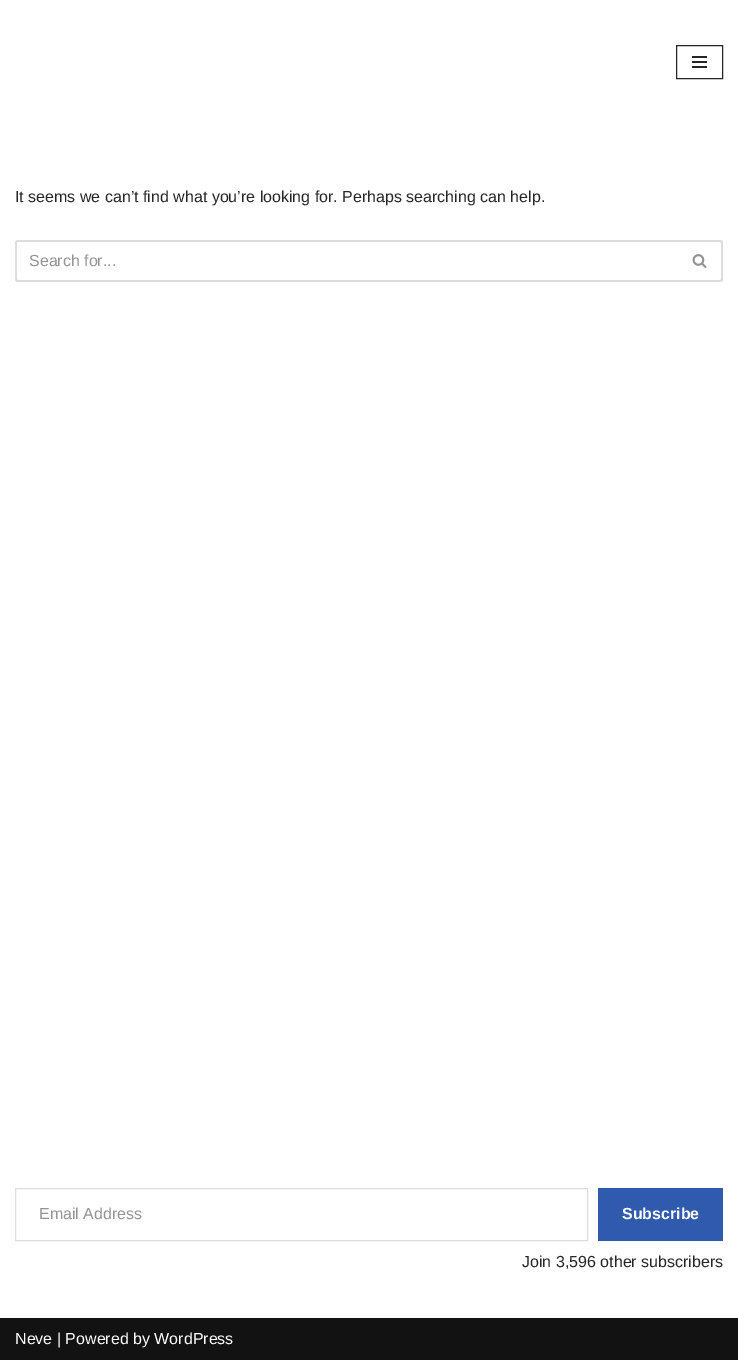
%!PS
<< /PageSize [738 1360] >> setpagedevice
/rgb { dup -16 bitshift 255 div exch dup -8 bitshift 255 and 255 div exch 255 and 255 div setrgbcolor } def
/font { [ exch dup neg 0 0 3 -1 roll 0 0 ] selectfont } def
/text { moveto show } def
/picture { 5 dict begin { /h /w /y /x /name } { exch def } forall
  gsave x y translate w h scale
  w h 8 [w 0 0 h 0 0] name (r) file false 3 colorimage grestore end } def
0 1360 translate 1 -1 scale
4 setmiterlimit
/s1 { /LiberationSans-Regular 16 font 16#272626 rgb } def
/s2 { /LiberationSans-Regular 16 font 16#939393 rgb } def
/s3 { /LiberationSans-Bold 16 font 16#FFFFFF rgb } def
/s4 { /LiberationSans-Regular 16 font 16#FFFFFF rgb } def
16#FFFFFF rgb
0 0 738 1360 rectfill
16#272626 rgb
676.5 45.5 46 33 rectstroke
692 56 15 2 rectfill
692 61 15 2 rectfill
692 66 15 2 rectfill
s1
(It seems we can’t find what you’re looking for. Perhaps searching can help.) 15 202 text
16#DDDDDD rgb
18 240 moveto 678 240 lineto 678 282 lineto 18 282 lineto 16 282 15 281 15 279 curveto 15 243 lineto 15 241 16 240 18 240 curveto closepath 18 242 moveto 678 242 lineto 678 280 lineto 18 280 lineto 17 280 17 280 17 279 curveto 17 243 lineto 17 242 17 242 18 242 curveto closepath eofill
s2
(Search for...) 29 266 text
16#DDDDDD rgb
678 240 moveto 720 240 lineto 722 240 723 241 723 243 curveto 723 279 lineto 723 281 722 282 720 282 curveto 678 282 lineto closepath 678 242 moveto 720 242 lineto 721 242 721 242 721 243 curveto 721 279 lineto 721 280 721 280 720 280 curveto 678 280 lineto closepath eofill
(pic1.raw) 692 254 15 14 picture
15.5 1188.5 572 52 rectstroke
s2
(Email Address) 39 1219 text
16#2F5AAE rgb
598 1188 125 53 rectfill
s3
(Subscribe) 622 1219 text
s1
(Join 3,596 other subscribers) 522 1267 text
16#121212 rgb
0 1318 738 42 rectfill
s4
(Neve | Powered by WordPress) 15 1344 text
showpage
